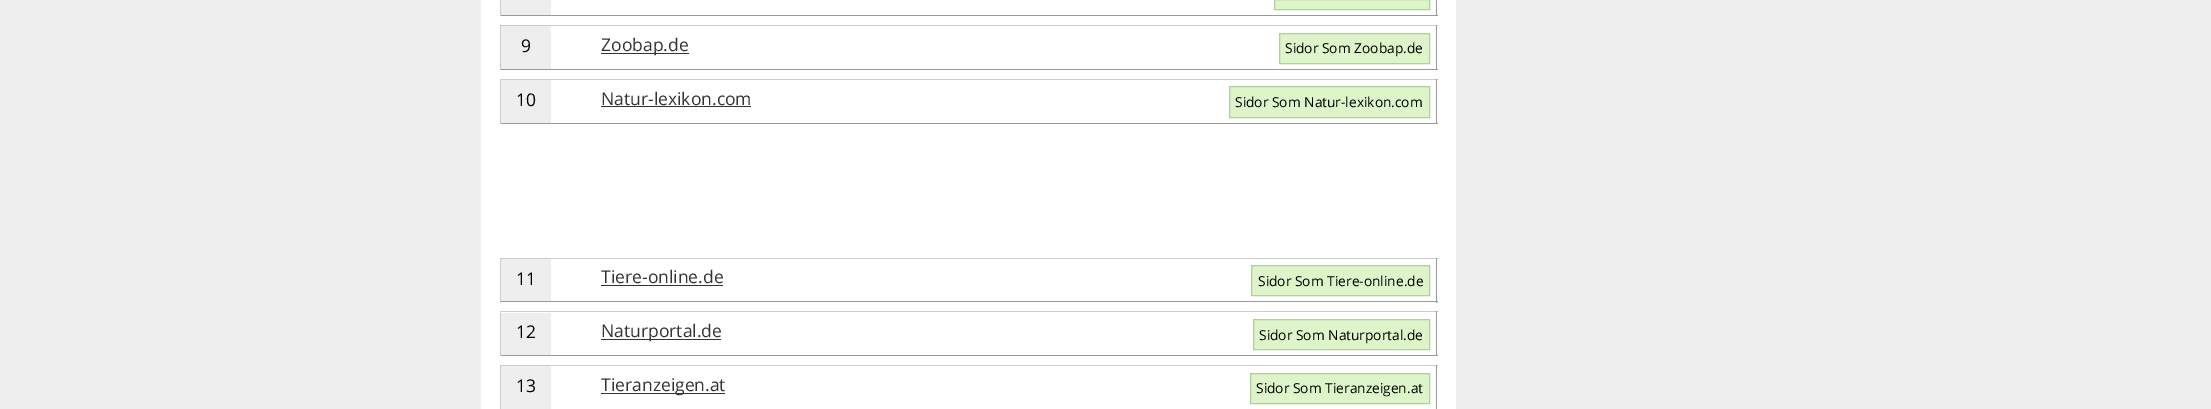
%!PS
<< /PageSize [2211 409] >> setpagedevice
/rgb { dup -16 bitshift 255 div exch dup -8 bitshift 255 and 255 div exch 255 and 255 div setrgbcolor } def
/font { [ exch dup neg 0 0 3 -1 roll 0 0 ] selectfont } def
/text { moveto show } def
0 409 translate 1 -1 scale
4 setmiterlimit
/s1 { /OpenSans-Regular 17.5 font 16#000000 rgb } def
/s2 { /OpenSans-Regular 17.5 font 16#333333 rgb } def
/s3 { /OpenSans-Regular 13.75 font 16#000000 rgb } def
16#EEEEEE rgb
0 0 2211 409 rectfill
16#FFFFFF rgb
481 0 975 409 rectfill
16#999999 rgb
1436 0 1 16 rectfill
500 15 938 1 rectfill
16#CCCCCC rgb
500 0 1 16 rectfill
16#EEEEEE rgb
501 0 50 15 rectfill
16#DDF5C8 rgb
1274.5 -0.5 moveto 1429.5 -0.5 lineto 1429.5 9.5 lineto 1274.5 9.5 lineto closepath gsave fill grestore
16#B1CEA1 rgb
stroke
16#CCCCCC rgb
500 25 938 1 rectfill
16#999999 rgb
1436 25 1 45 rectfill
500 69 938 1 rectfill
16#CCCCCC rgb
500 25 1 45 rectfill
16#EEEEEE rgb
501 26 50 43 rectfill
s1
(9) 521 52 text
16#333333 rgb
601 53 88 1 rectfill
(Zoobap.de) 601 51 text
16#DDF5C8 rgb
1279.5 33.5 moveto 1429.5 33.5 lineto 1429.5 63.5 lineto 1279.5 63.5 lineto closepath gsave fill grestore
16#B1CEA1 rgb
stroke
s3
(Sidor Som Zoobap.de) 1285 53 text
16#CCCCCC rgb
500 79 938 1 rectfill
16#999999 rgb
1436 79 1 45 rectfill
500 123 938 1 rectfill
16#CCCCCC rgb
500 79 1 45 rectfill
16#EEEEEE rgb
501 80 50 43 rectfill
s1
(10) 516 106 text
s2
(Natur-lexikon.com) 601 105 text
601 106 150 1 rectfill
16#DDF5C8 rgb
1229.5 86.5 moveto 1429.5 86.5 lineto 1429.5 117.5 lineto 1229.5 117.5 lineto closepath gsave fill grestore
16#B1CEA1 rgb
stroke
s3
(Sidor Som Natur-lexikon.com) 1235 107 text
16#CCCCCC rgb
500 258 938 1 rectfill
16#999999 rgb
1436 258 1 45 rectfill
500 301 938 1 rectfill
16#CCCCCC rgb
500 258 1 45 rectfill
16#EEEEEE rgb
501 259 50 42 rectfill
s1
(11) 516 285 text
s2
(Tiere-online.de) 601 283 text
601 285 122 1 rectfill
16#DDF5C8 rgb
1251.5 265.5 moveto 1429.5 265.5 lineto 1429.5 295.5 lineto 1251.5 295.5 lineto closepath gsave fill grestore
16#B1CEA1 rgb
stroke
s3
(Sidor Som Tiere-online.de) 1258 286 text
16#CCCCCC rgb
500 311 938 1 rectfill
16#999999 rgb
1436 311 1 45 rectfill
500 355 938 1 rectfill
16#CCCCCC rgb
500 311 1 45 rectfill
16#EEEEEE rgb
501 313 50 42 rectfill
s1
(12) 516 338 text
16#333333 rgb
601 339 120 1 rectfill
(Naturportal.de) 601 337 text
16#DDF5C8 rgb
1253.5 319.5 moveto 1429.5 319.5 lineto 1429.5 349.5 lineto 1253.5 349.5 lineto closepath gsave fill grestore
16#B1CEA1 rgb
stroke
s3
(Sidor Som Naturportal.de) 1259 340 text
16#CCCCCC rgb
500 365 938 1 rectfill
16#999999 rgb
1436 365 1 44 rectfill
16#CCCCCC rgb
500 365 1 44 rectfill
16#EEEEEE rgb
501 366 50 43 rectfill
s1
(13) 516 392 text
16#333333 rgb
601 393 124 1 rectfill
(Tieranzeigen.at) 601 391 text
16#DDF5C8 rgb
1250.5 373.5 moveto 1429.5 373.5 lineto 1429.5 403.5 lineto 1250.5 403.5 lineto closepath gsave fill grestore
16#B1CEA1 rgb
stroke
s3
(Sidor Som Tieranzeigen.at) 1256 393 text
showpage
